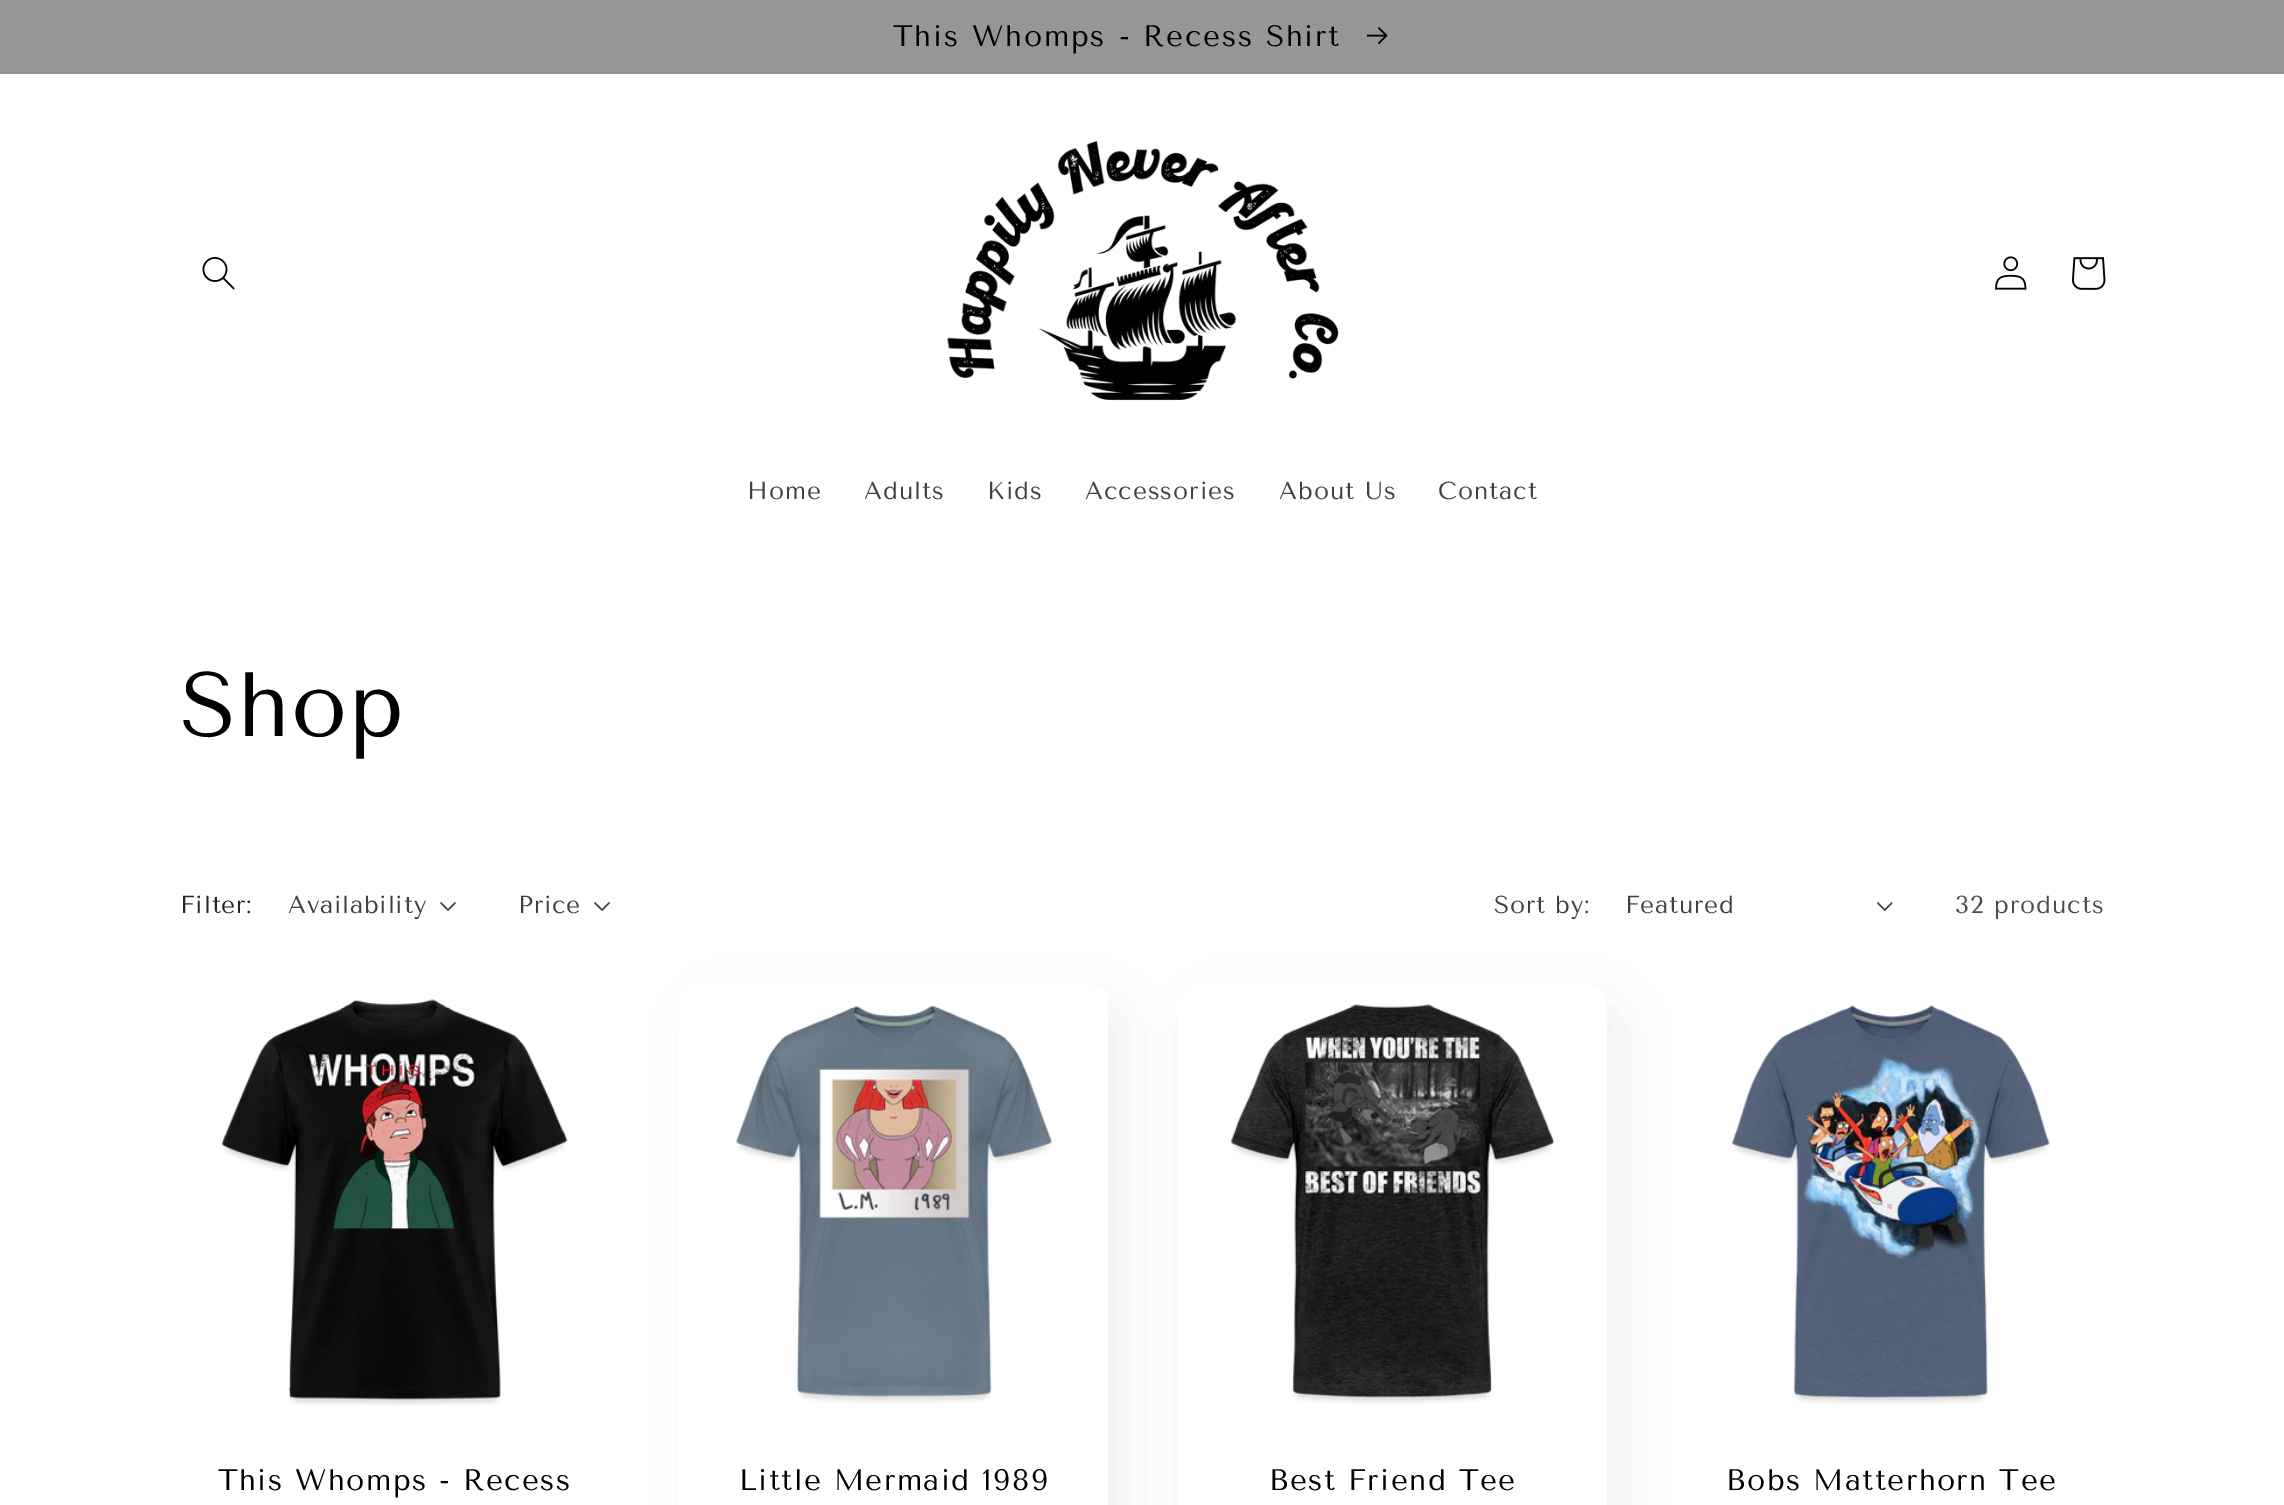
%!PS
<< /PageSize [2284 1505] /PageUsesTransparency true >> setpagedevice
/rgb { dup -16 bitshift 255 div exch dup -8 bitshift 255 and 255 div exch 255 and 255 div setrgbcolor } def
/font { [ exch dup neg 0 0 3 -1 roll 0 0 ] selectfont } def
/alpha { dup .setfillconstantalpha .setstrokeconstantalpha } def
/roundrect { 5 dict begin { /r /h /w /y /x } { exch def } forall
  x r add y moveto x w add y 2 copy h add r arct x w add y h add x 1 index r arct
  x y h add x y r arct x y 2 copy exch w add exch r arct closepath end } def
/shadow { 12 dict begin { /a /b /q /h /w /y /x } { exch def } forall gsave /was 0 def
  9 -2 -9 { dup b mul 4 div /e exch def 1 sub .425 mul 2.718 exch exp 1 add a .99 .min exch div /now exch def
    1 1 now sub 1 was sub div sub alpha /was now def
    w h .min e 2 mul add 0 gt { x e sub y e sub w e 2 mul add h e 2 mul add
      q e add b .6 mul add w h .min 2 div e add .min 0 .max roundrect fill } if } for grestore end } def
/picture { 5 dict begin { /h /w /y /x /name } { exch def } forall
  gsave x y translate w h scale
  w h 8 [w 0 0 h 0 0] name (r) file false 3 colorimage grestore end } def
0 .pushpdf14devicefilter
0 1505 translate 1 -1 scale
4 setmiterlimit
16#FFFFFF rgb
0 0 2284 1505 rectfill
16#929292 rgb
0 72 2284 2 rectfill
16#969696 rgb
0 0 2284 72 rectfill
/TenorSans-Regular 29.6 font
16#000000 rgb
893 46 moveto 1.75 0 (This Whomps - Recess Shirt) ashow
(pic1.raw) 1367 27 21 17 picture
(pic2.raw) 202 257 33 33 picture
(pic3.raw) 947 140 392 261 picture
(pic4.raw) 1995 256 32 34 picture
(pic5.raw) 2072 257 34 33 picture
/TenorSans-Regular 24.5 font
16#404040 rgb
747 499 moveto 1 0 (Home) ashow
864 499 moveto 1 0 (Adults) ashow
987 499 moveto 1 0 (Kids) ashow
1085 499 moveto 1 0 (Accessories) ashow
1279 499 moveto 1 0 (About Us) ashow
1438 499 moveto 1 0 (Contact) ashow
/TenorSans-Regular 91 font
16#000000 rgb
180 736 moveto 1.4 0 (Shop) ashow
/TenorSans-Regular 24.5 font
16#262626 rgb
180 913 moveto 0.75 0 (Filter:) ashow
16#404040 rgb
288 913 moveto 0.75 0 (Availability) ashow
(pic6.raw) 440 902 16 9 picture
518 913 moveto 0.75 0 (Price) ashow
16#000000 rgb
697 1003 428 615 21 30.5 0.05 shadow
(pic6.raw) 594 902 16 9 picture
1195 1003 429 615 21 30.5 0.05 shadow
16#404040 rgb
1494 913 moveto 0.75 0 (Sort by:) ashow
1625 913 moveto 0.75 0 (Featured) ashow
(pic7.raw) 1877 902 16 9 picture
16#4C4C4C rgb
1955 913 moveto 1 0 (32 products) ashow
(pic8.raw) 221 999 347 407 picture
/TenorSans-Regular 29.6 font
16#000000 rgb
218 1490 moveto 1.4 0 (This Whomps - Recess) ashow
16#FFFFFF rgb
679 985 429 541 21 roundrect fill
(pic9.raw) 736 1005 316 398 picture
16#000000 rgb
739 1490 moveto 1.4 0 (Little Mermaid 1989) ashow
16#FFFFFF rgb
1178 985 429 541 21 roundrect fill
(pic10.raw) 1231 1004 324 400 picture
16#000000 rgb
1269 1490 moveto 1.4 0 (Best Friend Tee) ashow
(pic11.raw) 1731 1005 319 399 picture
1726 1490 moveto 1.4 0 (Bobs Matterhorn Tee) ashow
.poppdf14devicefilter showpage
